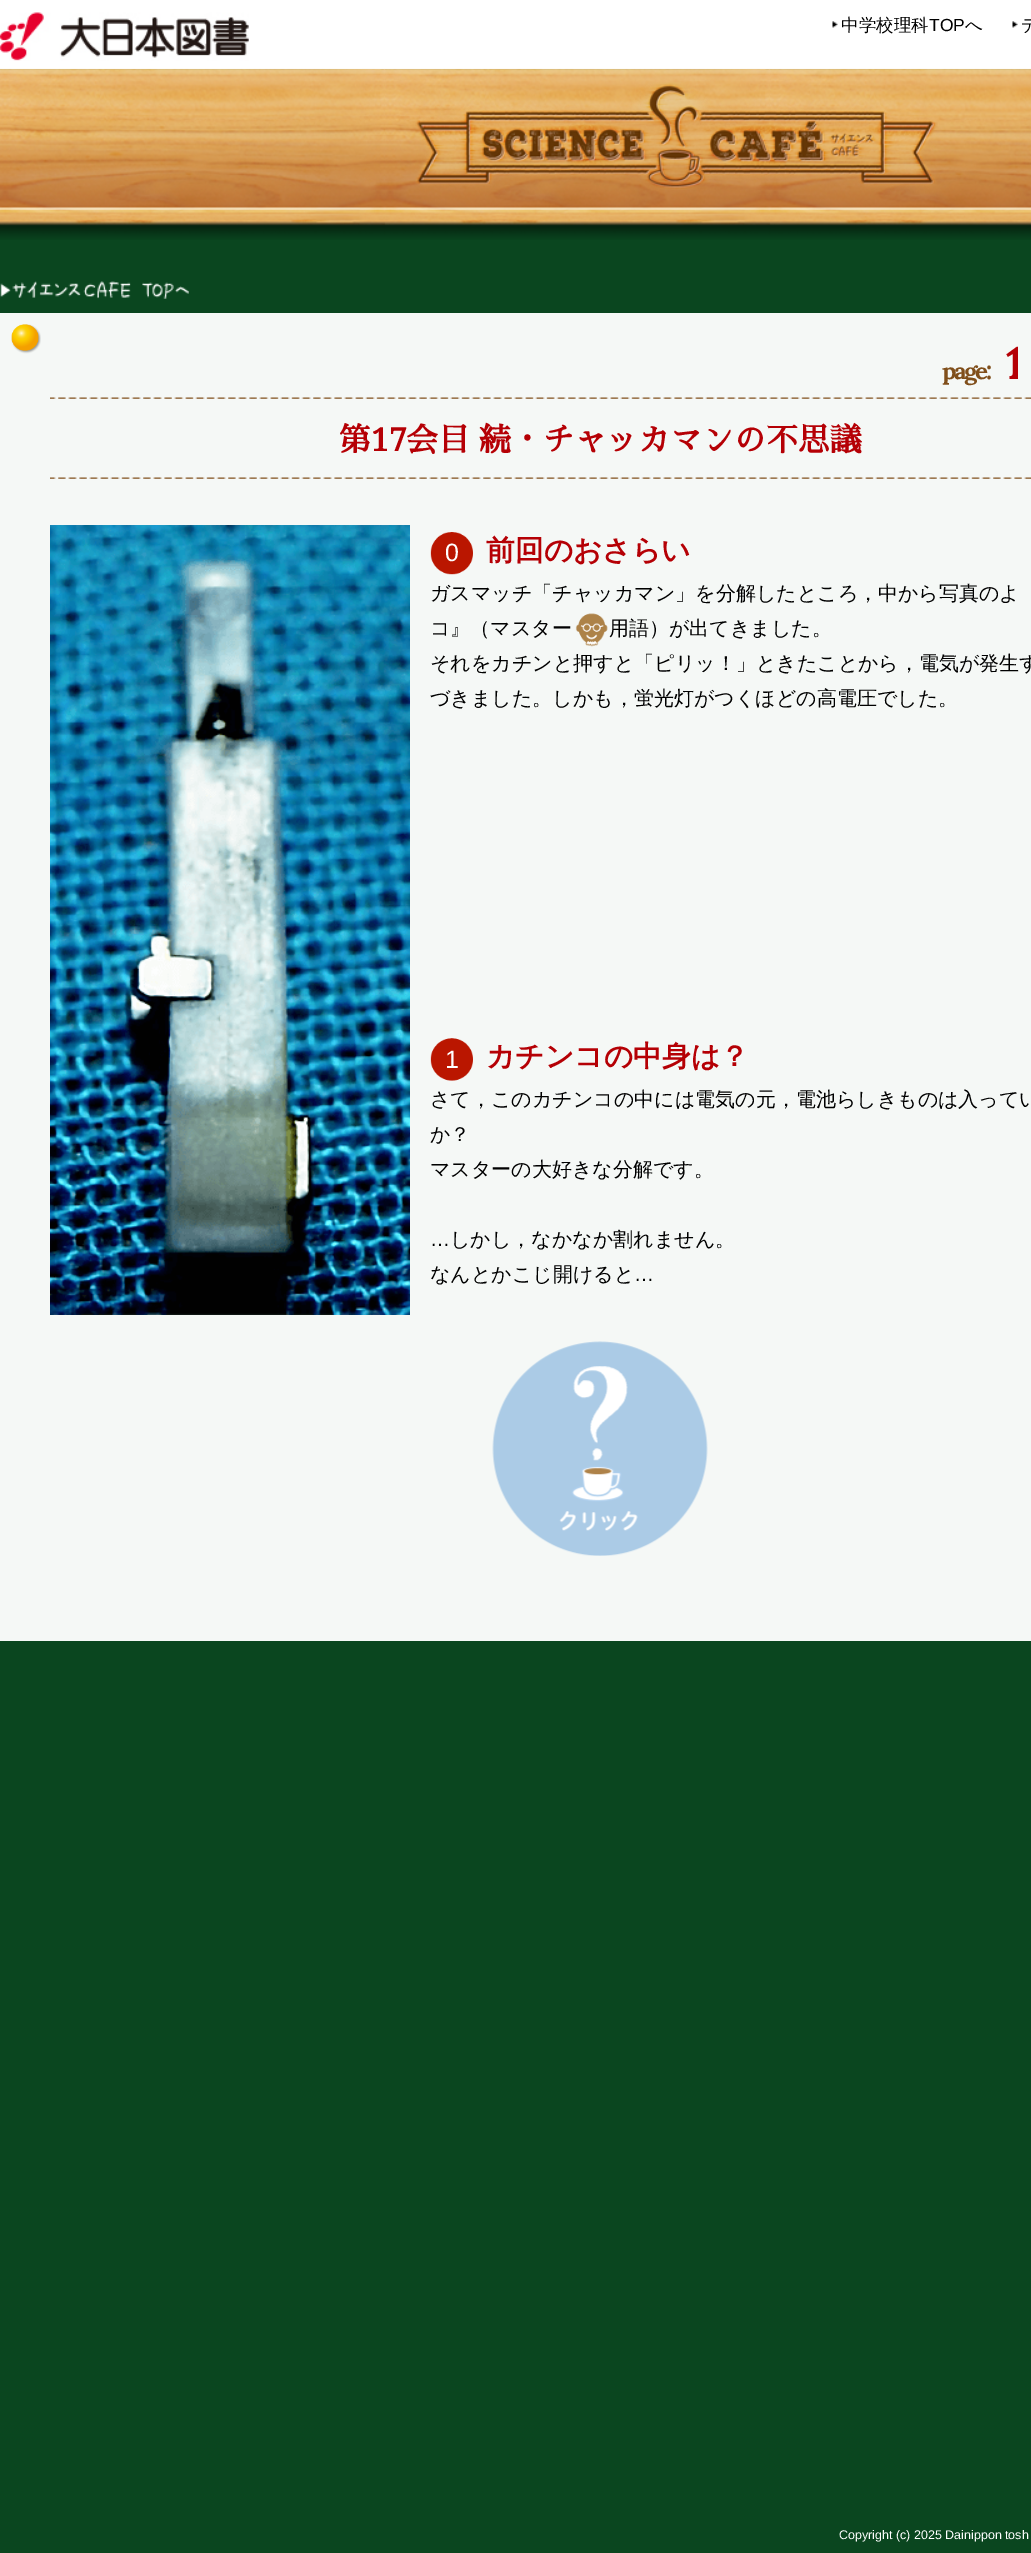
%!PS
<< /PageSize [1031 2553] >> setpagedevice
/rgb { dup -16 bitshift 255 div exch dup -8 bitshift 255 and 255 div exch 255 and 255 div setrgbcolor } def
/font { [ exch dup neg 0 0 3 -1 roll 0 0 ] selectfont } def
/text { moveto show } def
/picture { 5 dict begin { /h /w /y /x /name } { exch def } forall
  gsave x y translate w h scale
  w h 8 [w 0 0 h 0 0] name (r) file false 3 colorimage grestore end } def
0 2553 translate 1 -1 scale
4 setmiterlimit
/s1 { /WenQuanYiZenHei-Medium 17.5 font 16#000000 rgb } def
/s2 { /LiberationSans-Regular 17.5 font 16#000000 rgb } def
/s3 { /SawarabiMincho-Bold 31.9 font 16#B50005 rgb } def
/s4 { /NotoSerif-Bold 31.9 font 16#B50005 rgb } def
/s5 { /LiberationSans-Regular 25 font 16#FFFFFF rgb } def
/s6 { /WenQuanYiZenHei-Bold 28.75 font 16#B50005 rgb } def
/s7 { /WenQuanYiZenHei-Medium 20 font 16#000000 rgb } def
/s8 { /LiberationSans-Regular 20 font 16#000000 rgb } def
/s9 { /LiberationSans-Regular 12.5 font 16#FFFFFF rgb } def
16#0A461F rgb
0 0 1031 2553 rectfill
16#FFFFFF rgb
0 0 1031 69 rectfill
(pic1.raw) 0 12 249 49 picture
(pic2.raw) 832 21 6 7 picture
s1
(中学校理科) 841 31 text
s2
(TOP) 929 31 text
s1
(へ) 965 31 text
(pic3.raw) 1012 21 6 7 picture
(デ) 1021 31 text
(pic4.raw) 0 68 1031 172 picture
(pic5.raw) 415 82 523 108 picture
(pic6.raw) 0 281 189 18 picture
16#F5F8F6 rgb
0 313 1031 1328 rectfill
(pic7.raw) 11 324 30 30 picture
(pic8.raw) 50 397 981 2 picture
/Sumana-Bold 25 font
16#804F1B rgb
942 379 moveto -2.5 0 (page:) ashow
gsave
943 334 75 65 rectclip
/Sumana-Bold 45 font
16#B50005 rgb
1006 379 moveto -6 0 (1) ashow
grestore
(pic8.raw) 50 477 981 2 picture
s3
(第) 339 451 text
s4
(17) 371 451 text
s3
(会目) 406 451 text
(続・チャッカマンの不思議) 479 451 text
(pic9.raw) 50 525 360 790 picture
(pic10.raw) 430 532 43 43 picture
s5
(0) 445 561 text
s6
(前回のおさらい) 486 560 text
s7
(ガスマッチ「チャッカマン」を分解したところ，中から写真のよ) 430 600 text
(コ』（マスター) 430 635 text
(pic11.raw) 575 613 33 34 picture
(用語）が出てきました。) 609 635 text
(それをカチンと押すと「ピリッ！」ときたことから，電気が発生す) 430 670 text
(づきました。しかも，蛍光灯がつくほどの高電圧でした。) 430 705 text
(pic12.raw) 430 1038 43 43 picture
s5
(1) 445 1068 text
s6
(カチンコの中身は？) 486 1066 text
s7
(さて，このカチンコの中には電気の元，電池らしきものは入ってい) 430 1106 text
(か？) 430 1141 text
(マスターの大好きな分解です。) 430 1176 text
s8
(…) 430 1246 text
s7
(しかし，なかなか割れません。) 450 1246 text
(なんとかこじ開けると) 430 1281 text
s8
(…) 634 1281 text
(pic13.raw) 492 1341 216 215 picture
s9
(Copyright \(c\) 2025 Dainippon tosh) 839 2539 text
showpage
